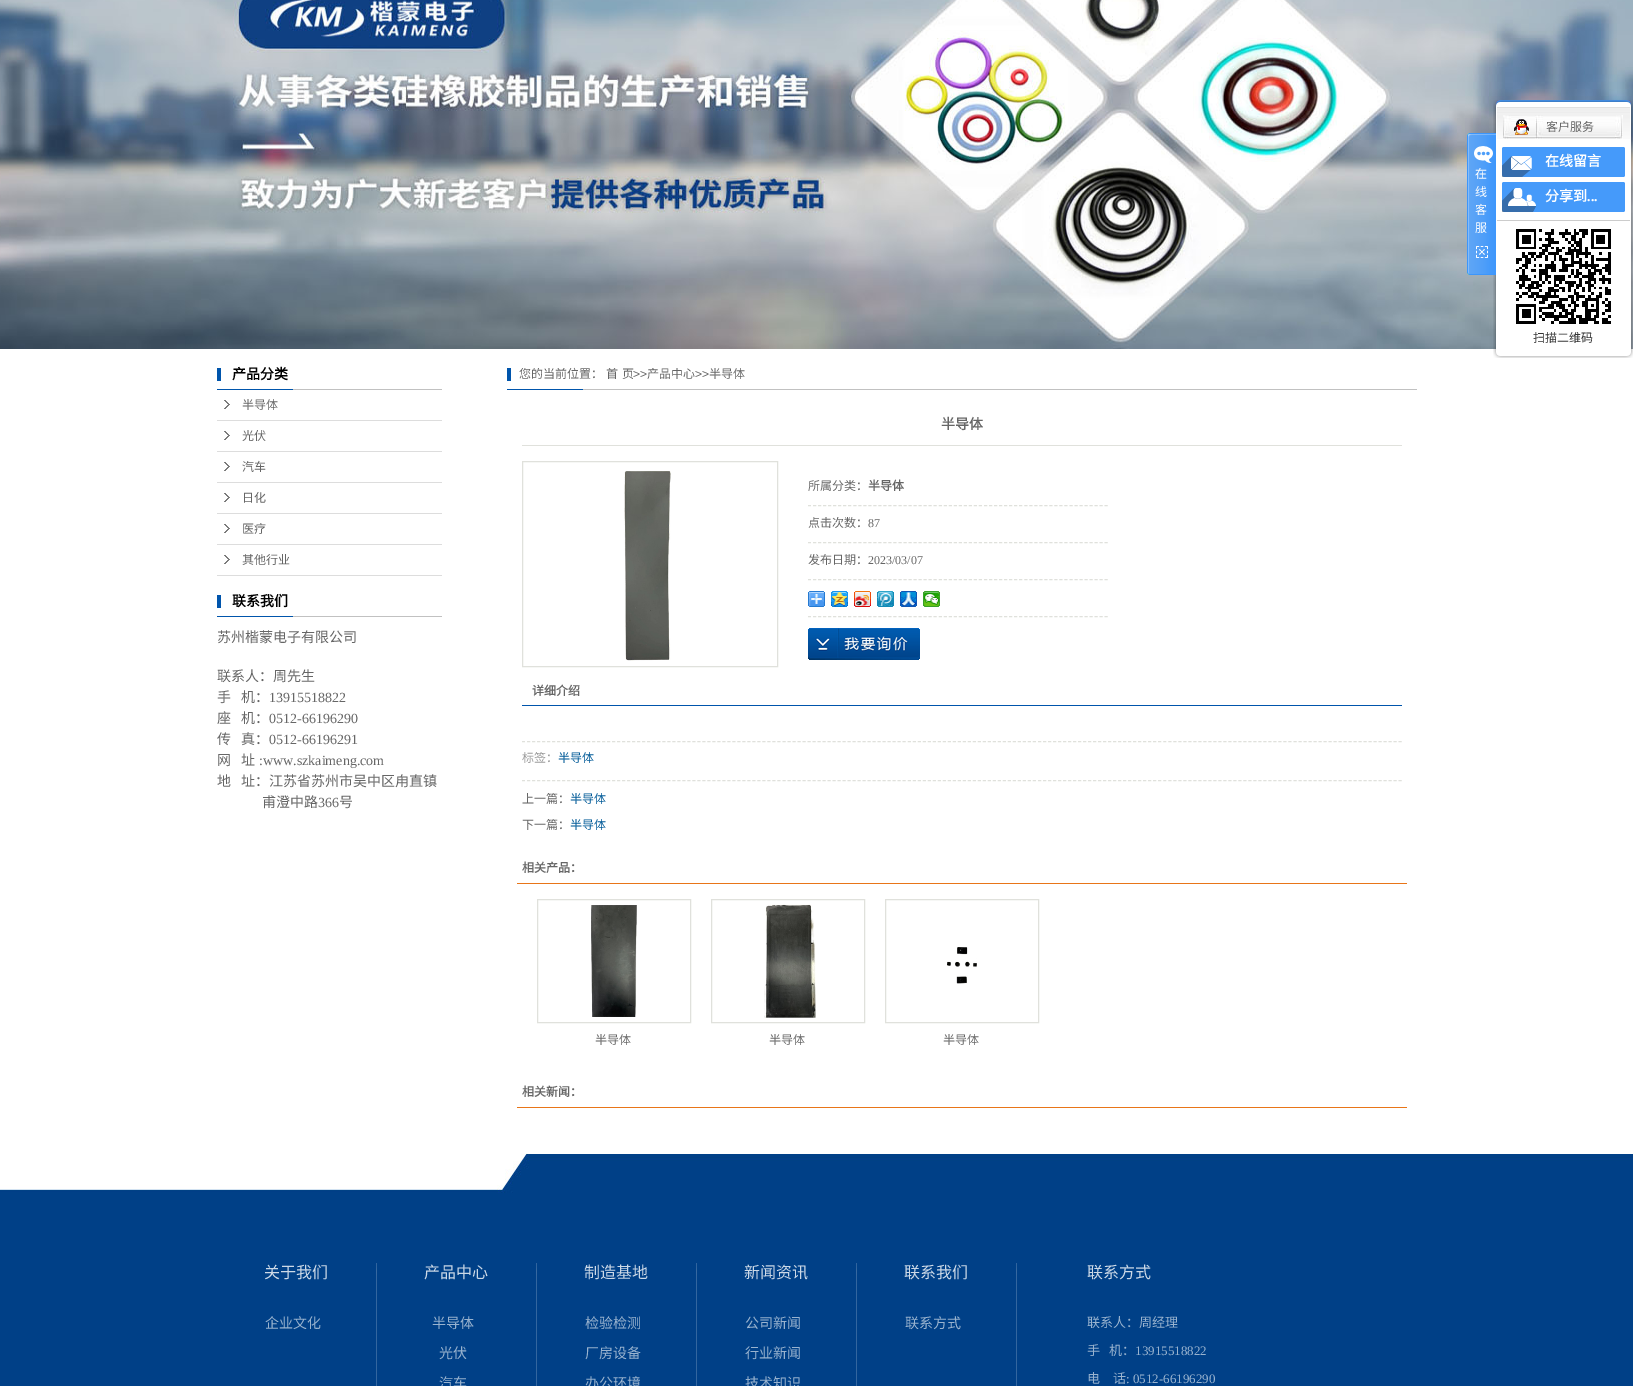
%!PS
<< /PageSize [1633 1386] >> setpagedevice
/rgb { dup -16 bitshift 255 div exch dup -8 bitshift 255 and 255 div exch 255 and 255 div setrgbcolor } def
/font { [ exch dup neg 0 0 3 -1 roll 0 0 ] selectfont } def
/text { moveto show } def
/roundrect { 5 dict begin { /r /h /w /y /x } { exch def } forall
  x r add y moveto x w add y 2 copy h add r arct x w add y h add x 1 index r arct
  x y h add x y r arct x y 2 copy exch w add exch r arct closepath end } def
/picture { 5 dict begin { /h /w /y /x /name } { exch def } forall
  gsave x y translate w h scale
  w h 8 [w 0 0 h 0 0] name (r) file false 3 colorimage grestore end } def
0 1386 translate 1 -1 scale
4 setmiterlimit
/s1 { /NotoSansCJKSC-Regular 12 font 16#FFFFFF rgb } def
/s2 { /NotoSansCJKSC-Regular 12 font 16#666666 rgb } def
/s3 { /NotoSansCJKSC-Bold 14 font 16#FFFFFF rgb } def
/s4 { /LiberationSerif-Bold 14 font 16#FFFFFF rgb } def
/s5 { /NotoSansCJKSC-Regular 12 font 16#333333 rgb } def
/s6 { /NotoSansCJKSC-Bold 14 font 16#000000 rgb } def
/s7 { /NotoSansCJKSC-Regular 14 font 16#666666 rgb } def
/s8 { /LiberationSerif-Regular 14 font 16#666666 rgb } def
/s9 { /LiberationSans-Regular 12 font 16#666666 rgb } def
/s10 { /NotoSansCJKSC-Bold 14 font 16#666666 rgb } def
/s11 { /NotoSansCJKSC-Bold 12 font 16#666666 rgb } def
/s12 { /LiberationSerif-Regular 12 font 16#666666 rgb } def
/s13 { /NotoSansCJKSC-Regular 12 font 16#999999 rgb } def
/s14 { /NotoSansCJKSC-Regular 12 font 16#005A98 rgb } def
/s15 { /NotoSansCJKSC-Regular 16 font 16#CCD9E7 rgb } def
/s16 { /NotoSansCJKSC-Regular 14 font 16#99B3CF rgb } def
/s17 { /NotoSansCJKSC-Regular 13 font 16#99B3CF rgb } def
/s18 { /LiberationSerif-Regular 13 font 16#99B3CF rgb } def
16#FFFFFF rgb
0 0 1633 1386 rectfill
(pic1.raw) 0 0 1633 349 picture
(pic5.raw) 1493 107 140 243 picture
(pic2.raw) 1467 133 29 142 picture
s1
(在) 1475 178 text
(线) 1475 196 text
(客) 1475 214 text
(服) 1475 232 text
(pic3.raw) 1476 246 12 12 picture
(pic4.raw) 1493 100 140 7 picture
(pic6.raw) 1497 107 133 32 picture
(pic7.raw) 1503 115 120 24 picture
(pic8.raw) 1514 119 15 16 picture
s2
(客户服务) 1546 131 text
16#459AFA rgb
1502 147 123 30 2 roundrect fill
(pic9.raw) 1502 156 30 21 picture
s3
(在线留言) 1545 166 text
16#459AFA rgb
1502 182 123 30 2 roundrect fill
(pic10.raw) 1502 188 34 24 picture
s3
(分享到) 1545 201 text
s4
(...) 1587 201 text
16#CCCCCC rgb
1497 220 133 1 rectfill
(pic11.raw) 1516 229 95 95 picture
s5
(扫描二维码) 1533 342 text
(pic12.raw) 1493 350 140 8 picture
(pic13.raw) 217 368 225 22 picture
s6
(产品分类) 232 379 text
(pic14.raw) 224 400 6 9 picture
16#DDDDDD rgb
217 420 225 1 rectfill
s2
(半导体) 242 409 text
(pic14.raw) 224 431 6 9 picture
16#DDDDDD rgb
217 451 225 1 rectfill
s2
(光伏) 242 440 text
(pic14.raw) 224 462 6 9 picture
16#DDDDDD rgb
217 482 225 1 rectfill
s2
(汽车) 242 471 text
(pic14.raw) 224 493 6 9 picture
16#DDDDDD rgb
217 513 225 1 rectfill
s2
(日化) 242 502 text
(pic14.raw) 224 524 6 9 picture
16#DDDDDD rgb
217 544 225 1 rectfill
s2
(医疗) 242 533 text
(pic14.raw) 224 555 6 9 picture
16#DDDDDD rgb
217 575 225 1 rectfill
s2
(其他行业) 242 564 text
(pic13.raw) 217 595 225 22 picture
s6
(联系我们) 232 606 text
s7
(苏州楷蒙电子有限公司) 217 642 text
(联系人：周先生) 217 681 text
(手) 217 702 text
(机：) 241 702 text
s8
(13915518822) 269 702 text
s7
(座) 217 723 text
(机：) 241 723 text
s8
(0512-66196290) 269 723 text
s7
(传) 217 744 text
(真：) 241 744 text
s8
(0512-66196291) 269 744 text
s7
(网) 217 765 text
(址) 241 765 text
s8
(:www.szkaimeng.com) 259 765 text
s7
(地) 217 786 text
(址：江苏省苏州市吴中区甪直镇) 241 786 text
(甫澄中路) 262 807 text
s8
(366) 318 807 text
s7
(号) 339 807 text
(pic15.raw) 507 368 910 22 picture
s2
(您的当前位置：) 519 378 text
606 378 moveto 1 0 32 (首 页) widthshow
s9
(>>) 633 378 text
s2
(产品中心) 647 378 text
s9
(>>) 695 378 text
s2
(半导体) 709 378 text
16#E0E1DC rgb
522 445 880 1 rectfill
s10
(半导体) 941 429 text
16#E0E1DC rgb
522.5 461.5 255 205 rectstroke
(pic16.raw) 624 471 47 190 picture
[3 2.03] 0 setdash
808 505.5 moveto 1108 505.5 lineto stroke
s2
(所属分类：) 808 490 text
s11
(半导体) 868 490 text
16#E0E1DC rgb
808 542.5 moveto 1108 542.5 lineto stroke
s2
(点击次数：) 808 527 text
s12
(87) 868 527 text
16#E0E1DC rgb
808 579.5 moveto 1108 579.5 lineto stroke
s2
(发布日期：) 808 564 text
s12
(2023/03/07) 868 564 text
16#E0E1DC rgb
808 616.5 moveto 1108 616.5 lineto stroke
(pic17.raw) 808 591 17 16 picture
(pic18.raw) 831 591 17 16 picture
(pic19.raw) 854 591 17 16 picture
(pic20.raw) 877 591 17 16 picture
(pic21.raw) 900 591 17 16 picture
(pic22.raw) 923 591 17 16 picture
(pic23.raw) 808 628 112 32 picture
16#0055AC rgb
522 705 880 1 rectfill
s11
(详细介绍) 532 695 text
16#E0E1DC rgb
[3 2.01] 0 setdash
522 741.5 moveto 1402 741.5 lineto stroke
s13
(标签：) 522 762 text
s14
(半导体) 558 762 text
16#E0E1DC rgb
522 780.5 moveto 1402 780.5 lineto stroke
s2
(上一篇：) 522 803 text
s14
(半导体) 570 803 text
s2
(下一篇：) 522 829 text
s14
(半导体) 570 829 text
16#E87518 rgb
517 883 890 1 rectfill
s11
(相关产品：) 522 872 text
16#E0E1DC rgb
[] 0 setdash
537.5 899.5 153 123 rectstroke
(pic24.raw) 591 905 46 112 picture
s2
(半导体) 595 1044 text
16#E0E1DC rgb
711.5 899.5 153 123 rectstroke
(pic25.raw) 764 904 52 114 picture
s2
(半导体) 769 1044 text
16#E0E1DC rgb
885.5 899.5 153 123 rectstroke
(pic26.raw) 947 947 30 37 picture
s2
(半导体) 943 1044 text
16#E87518 rgb
517 1107 890 1 rectfill
s11
(相关新闻：) 522 1096 text
(pic27.raw) 0 1153 1633 233 picture
(pic28.raw) 376 1263 1 123 picture
s15
(关于我们) 264 1278 text
s16
(企业文化) 265 1328 text
(pic28.raw) 536 1263 1 123 picture
s15
(产品中心) 424 1278 text
s16
(半导体) 432 1328 text
(光伏) 439 1358 text
(汽车) 439 1388 text
(pic28.raw) 696 1263 1 123 picture
s15
(制造基地) 584 1278 text
s16
(检验检测) 585 1328 text
(厂房设备) 585 1358 text
(办公环境) 585 1388 text
(pic28.raw) 856 1263 1 123 picture
s15
(新闻资讯) 744 1278 text
s16
(公司新闻) 745 1328 text
(行业新闻) 745 1358 text
(技术知识) 745 1388 text
(pic28.raw) 1016 1263 1 123 picture
s15
(联系我们) 904 1278 text
s16
(联系方式) 905 1328 text
s15
(联系方式) 1087 1278 text
s17
(联系人：周经理) 1087 1327 text
(手) 1087 1355 text
(机：) 1109 1355 text
s18
(13915518822) 1135 1355 text
s17
(电) 1087 1383 text
(话) 1113 1383 text
s18
(: 0512-66196290) 1126 1383 text
showpage
